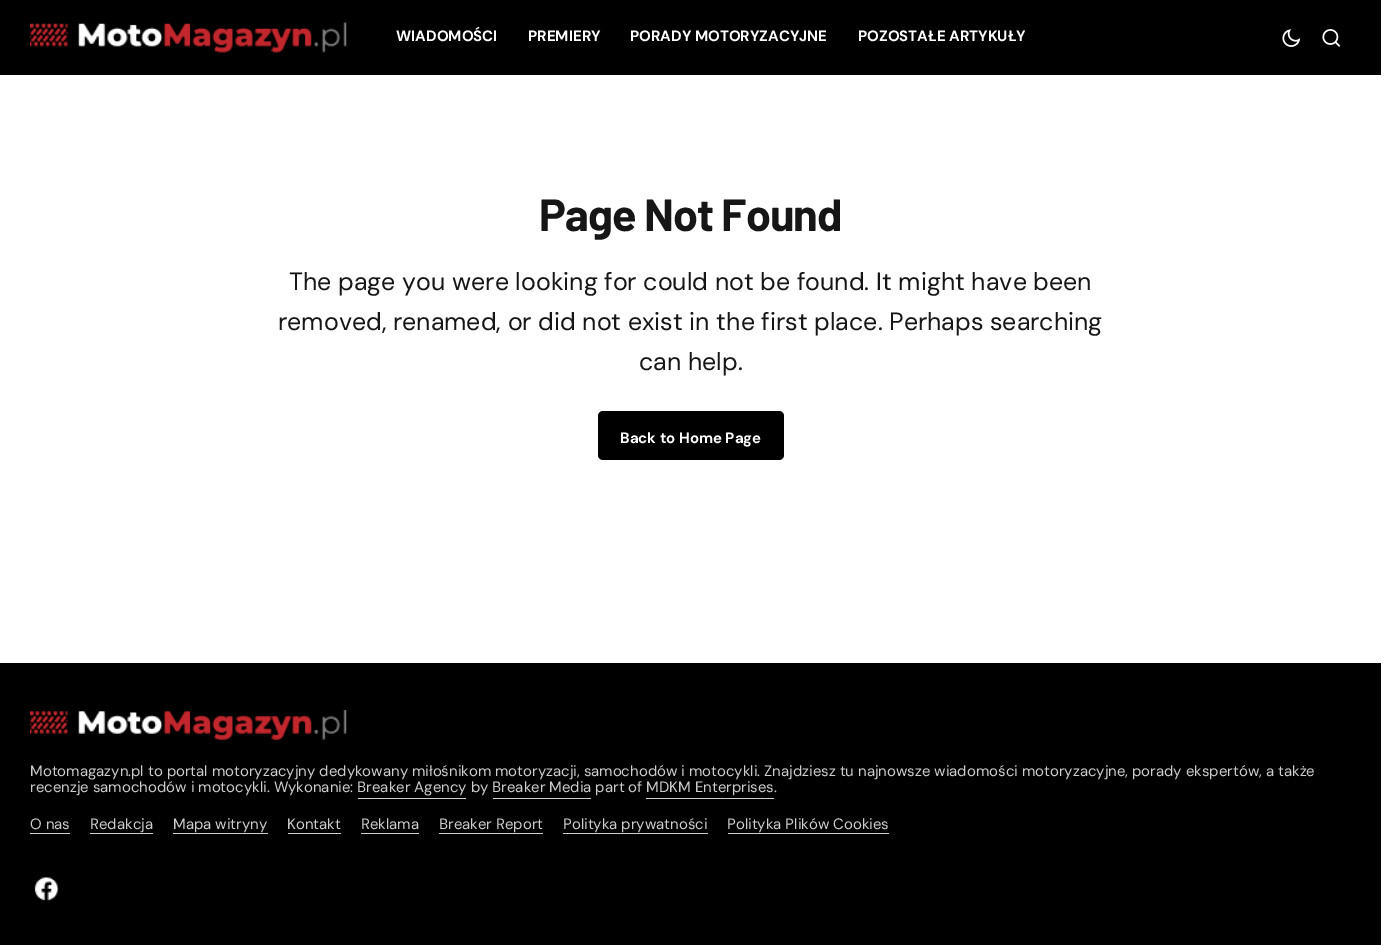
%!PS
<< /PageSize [1400 945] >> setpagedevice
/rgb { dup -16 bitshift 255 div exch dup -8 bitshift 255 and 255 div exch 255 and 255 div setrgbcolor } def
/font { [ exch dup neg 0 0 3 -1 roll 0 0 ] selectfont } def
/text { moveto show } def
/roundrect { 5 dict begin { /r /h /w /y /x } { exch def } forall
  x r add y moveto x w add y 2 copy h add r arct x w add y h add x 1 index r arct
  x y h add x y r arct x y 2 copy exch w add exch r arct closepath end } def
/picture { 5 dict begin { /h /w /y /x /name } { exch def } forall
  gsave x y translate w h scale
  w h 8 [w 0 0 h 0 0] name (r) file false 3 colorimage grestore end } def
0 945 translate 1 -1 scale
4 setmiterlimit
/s1 { /DMSans-Bold 15 font 16#FFFFFF rgb } def
/s2 { /DMSans-Regular 25 font 16#161616 rgb } def
/s3 { /DMSans-Regular 15 font 16#CDCDCD rgb } def
16#FFFFFF rgb
0 0 1400 945 rectfill
16#000000 rgb
0 0 1381 75 rectfill
(pic1.raw) 30 22 317 31 picture
s1
(WIADOMOŚCI) 396 41 text
(PREMIERY) 528 41 text
(PORADY MOTORYZACYJNE) 630 41 text
(POZOSTAŁE ARTYKUŁY) 858 41 text
(pic2.raw) 1282 29 19 18 picture
(pic3.raw) 1322 29 19 18 picture
/Barlow-Bold 45 font
16#161616 rgb
539 231 moveto -0.9 0 (Page Not Found) ashow
s2
(The page you were looking for could not be found. It might have been) 289 290 text
(removed, renamed, or did not exist in the first place. Perhaps searching) 278 330 text
(can help.) 639 370 text
16#000000 rgb
598 411 186 49 5 roundrect fill
s1
(Back to Home Page) 620 443 text
16#000000 rgb
0 663 1381 282 rectfill
(pic4.raw) 30 710 317 30 picture
s3
(Motomagazyn.pl to portal motoryzacyjny dedykowany miłośnikom motoryzacji, samochodów i motocykli. Znajdziesz tu najnowsze wiadomości motoryzacyjne, porady ekspertów, a także) 30 776 text
(recenzje samochodów i motocykli. Wykonanie: Breaker Agency by Breaker Media part of MDKM Enterprises.) 30 792 text
358 798 108 1 rectfill
493 798 98 1 rectfill
646 798 128 1 rectfill
(O nas) 30 829 text
30 833 40 1 rectfill
(Redakcja) 90 829 text
90 833 63 1 rectfill
(Mapa witryny) 173 829 text
173 833 95 1 rectfill
(Kontakt) 287 829 text
288 833 53 1 rectfill
(Reklama) 361 829 text
361 833 58 1 rectfill
(Breaker Report) 439 829 text
439 833 104 1 rectfill
(Polityka prywatności) 563 829 text
563 833 145 1 rectfill
(Polityka Plików Cookies) 727 829 text
728 833 161 1 rectfill
(pic5.raw) 34 877 25 24 picture
showpage
